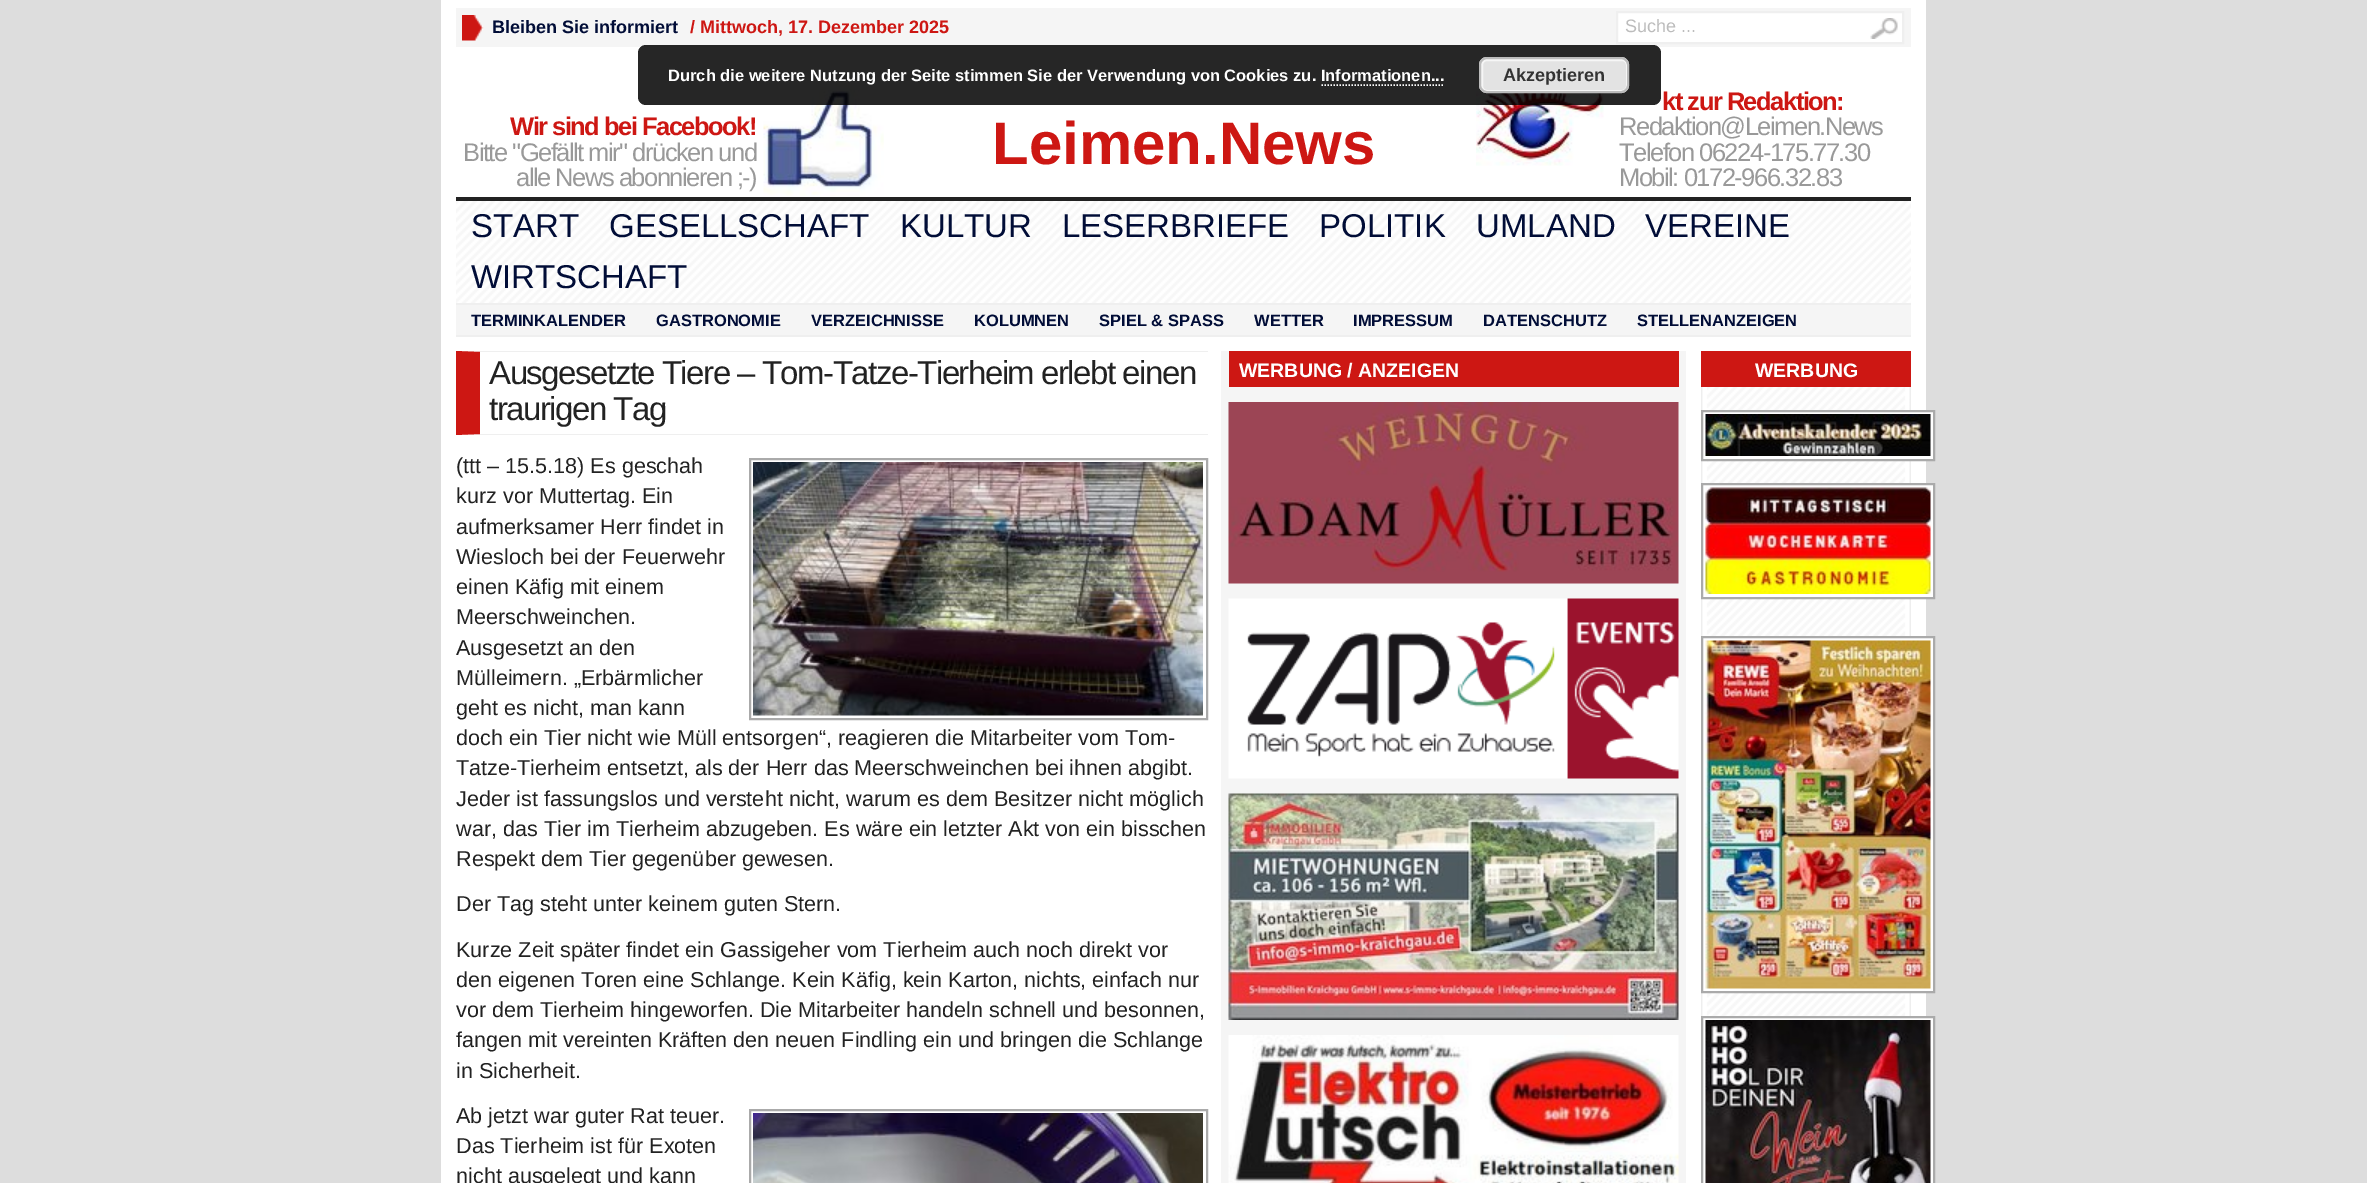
%!PS
<< /PageSize [2367 1183] /PageUsesTransparency true >> setpagedevice
/rgb { dup -16 bitshift 255 div exch dup -8 bitshift 255 and 255 div exch 255 and 255 div setrgbcolor } def
/font { [ exch dup neg 0 0 3 -1 roll 0 0 ] selectfont } def
/text { moveto show } def
/alpha { dup .setfillconstantalpha .setstrokeconstantalpha } def
/roundrect { 5 dict begin { /r /h /w /y /x } { exch def } forall
  x r add y moveto x w add y 2 copy h add r arct x w add y h add x 1 index r arct
  x y h add x y r arct x y 2 copy exch w add exch r arct closepath end } def
/picture { 5 dict begin { /h /w /y /x /name } { exch def } forall
  gsave x y translate w h scale
  w h 8 [w 0 0 h 0 0] name (r) file false 3 colorimage grestore end } def
0 .pushpdf14devicefilter
0 1183 translate 1 -1 scale
4 setmiterlimit
/s1 { /LiberationSans-Bold 18 font 16#010D37 rgb } def
/s2 { /LiberationSans-Bold 18 font 16#CD1713 rgb } def
/s3 { /LiberationSans-Regular 18 font 16#BCBCBC rgb } def
/s4 { /LiberationSans-Bold 16.5 font 16#FFFFFF rgb } def
/s5 { /LiberationSans-Bold 18 font 16#333333 rgb } def
/s6 { /LiberationSans-Bold 60 font 16#CD1713 rgb } def
/s7 { /LiberationSans-Regular 33 font 16#010D37 rgb } def
/s8 { /LiberationSans-Bold 16.5 font 16#010D37 rgb } def
/s9 { /LiberationSans-Regular 21.6 font 16#222222 rgb } def
/s10 { /LiberationSans-Bold 19.5 font 16#FFFFFF rgb } def
16#DDDDDD rgb
0 0 2367 1183 rectfill
16#FFFFFF rgb
441 0 1485 1183 rectfill
16#F5F5F5 rgb
456 8 1455 39 rectfill
(pic1.raw) 462 15 22 26 picture
s1
(Bleiben Sie informiert) 492 33 text
s2
(/ Mittwoch, 17. Dezember 2025) 690 33 text
16#FFFFFF rgb
1617 12 moveto 1903 12 lineto 1903 43 lineto 1617 43 lineto closepath gsave fill grestore
16#EFEFEF rgb
2 setlinewidth
stroke
s3
(Suche ...) 1625 32 text
(pic2.raw) 1870 18 28 21 picture
(pic3.raw) 763 78 121 118 picture
(pic4.raw) 1476 69 128 97 picture
0.85 alpha
16#000000 rgb
638 45 1023 60 8 roundrect fill
1 alpha
s4
(Durch die weitere Nutzung der Seite stimmen Sie der Verwendung von Cookies zu. Informationen...) 668 81 text
16#E3E3E3 rgb
1479 57 150 36 8 roundrect fill
16#F6F6F6 rgb
1482 60 145 31 5 roundrect stroke
16#BBBBBB rgb
1480 58 148 34 7 roundrect stroke
s5
(Akzeptieren) 1503 81 text
16#FFFFFF rgb
1.5 setlinewidth
[1.5 1.5] 0 setdash
1321.5 85 moveto 1444.5 85 lineto stroke
16#222222 rgb
456 197 1455 4 rectfill
/LiberationSans-Bold 25.5 font
16#CD1713 rgb
510 135 moveto -1.5 0 (Wir sind bei Facebook!) ashow
/LiberationSans-Regular 25.5 font
16#999999 rgb
463 161 moveto -1.5 0 (Bitte "Gefällt mir" drücken und) ashow
516 186 moveto -1.5 0 (alle News abonnieren ;-\)) ashow
s6
(Leimen.News) 992 164 text
/LiberationSans-Bold 25.5 font
1662 110 moveto -1.5 0 (kt zur Redaktion:) ashow
/LiberationSans-Regular 25.5 font
16#999999 rgb
1619 135 moveto -1.5 0 (Redaktion@Leimen.News) ashow
1619 161 moveto -1.5 0 (Telefon 06224-175.77.30) ashow
1619 186 moveto -1.5 0 (Mobil: 0172-966.32.83) ashow
(pic5.raw) 456 201 1455 102 picture
16#EFEFEF rgb
456 303 1455 2 rectfill
s7
(START) 471 237 text
(GESELLSCHAFT) 609 237 text
(KULTUR) 900 237 text
(LESERBRIEFE) 1062 237 text
(POLITIK) 1319 237 text
(UMLAND) 1476 237 text
(VEREINE) 1645 237 text
(WIRTSCHAFT) 471 288 text
16#F5F5F5 rgb
456 305 1455 30 rectfill
16#EFEFEF rgb
456 335 1455 2 rectfill
s8
(TERMINKALENDER) 471 326 text
(GASTRONOMIE) 656 326 text
(VERZEICHNISSE) 811 326 text
(KOLUMNEN) 974 326 text
(SPIEL & SPASS) 1099 326 text
(WETTER) 1254 326 text
(IMPRESSUM) 1353 326 text
(DATENSCHUTZ) 1483 326 text
(STELLENANZEIGEN) 1637 326 text
16#EFEFEF rgb
456 351 moveto 1208 351 lineto 1208 352 lineto 480 352 lineto closepath fill
1208 435 moveto 456 435 lineto 480 434 lineto 1208 434 lineto closepath fill
16#CD1713 rgb
456 435 moveto 456 351 lineto 480 352 lineto 480 434 lineto closepath fill
/LiberationSans-Regular 33 font
16#222222 rgb
489 384 moveto -1.5 0 (Ausgesetzte Tiere – Tom-Tatze-Tierheim erlebt einen) ashow
489 420 moveto -1.5 0 (traurigen Tag) ashow
s9
(\(ttt – 15.5.18\) Es geschah) 456 473 text
16#AAAAAA rgb
2 setlinewidth
[] 0 setdash
750 459 457 260 rectstroke
(pic6.raw) 753 462 450 254 picture
s9
(kurz vor Muttertag. Ein) 456 503 text
(aufmerksamer Herr findet in) 456 534 text
(Wiesloch bei der Feuerwehr) 456 564 text
(einen Käfig mit einem) 456 594 text
(Meerschweinchen.) 456 624 text
(Ausgesetzt an den) 456 655 text
(Mülleimern. „Erbärmlicher) 456 685 text
(geht es nicht, man kann) 456 715 text
(doch ein Tier nicht wie Müll entsorgen“, reagieren die Mitarbeiter vom Tom-) 456 745 text
(Tatze-Tierheim entsetzt, als der Herr das Meerschweinchen bei ihnen abgibt.) 456 775 text
(Jeder ist fassungslos und versteht nicht, warum es dem Besitzer nicht möglich) 456 806 text
(war, das Tier im Tierheim abzugeben. Es wäre ein letzter Akt von ein bisschen) 456 836 text
(Respekt dem Tier gegenüber gewesen.) 456 866 text
(Der Tag steht unter keinem guten Stern.) 456 911 text
(Kurze Zeit später findet ein Gassigeher vom Tierheim auch noch direkt vor) 456 957 text
(den eigenen Toren eine Schlange. Kein Käfig, kein Karton, nichts, einfach nur) 456 987 text
(vor dem Tierheim hingeworfen. Die Mitarbeiter handeln schnell und besonnen,) 456 1017 text
(fangen mit vereinten Kräften den neuen Findling ein und bringen die Schlange) 456 1047 text
(in Sicherheit.) 456 1078 text
(Ab jetzt war guter Rat teuer.) 456 1123 text
16#AAAAAA rgb
750 1110 457 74 rectstroke
(pic7.raw) 753 1113 450 70 picture
s9
(Das Tierheim ist für Exoten) 456 1153 text
(nicht ausgelegt und kann) 456 1183 text
16#F5F5F5 rgb
1221 351 465 832 rectfill
16#CD1713 rgb
1229 351 450 36 rectfill
s10
(WERBUNG / ANZEIGEN) 1239 377 text
(pic8.raw) 1228 402 451 182 picture
(pic9.raw) 1228 598 451 181 picture
(pic10.raw) 1228 793 451 227 picture
(pic11.raw) 1228 1035 451 148 picture
(pic12.raw) 1701 387 210 629 picture
16#CD1713 rgb
1701 351 210 36 rectfill
s10
(WERBUNG) 1755 377 text
1707 412 226 47 rectfill
16#AAAAAA rgb
1702 411 232 49 rectstroke
(pic13.raw) 1705 414 226 42 picture
16#FFFFFF rgb
1707 485 226 112 rectfill
16#AAAAAA rgb
1702 484 232 114 rectstroke
(pic14.raw) 1705 487 226 107 picture
16#FFFFFF rgb
1707 638 226 353 rectfill
16#AAAAAA rgb
1702 637 232 355 rectstroke
(pic15.raw) 1705 640 226 349 picture
16#FFFFFF rgb
1926 1018 7 165 rectfill
16#AAAAAA rgb
1702 1017 232 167 rectstroke
(pic16.raw) 1705 1020 226 163 picture
.poppdf14devicefilter showpage
